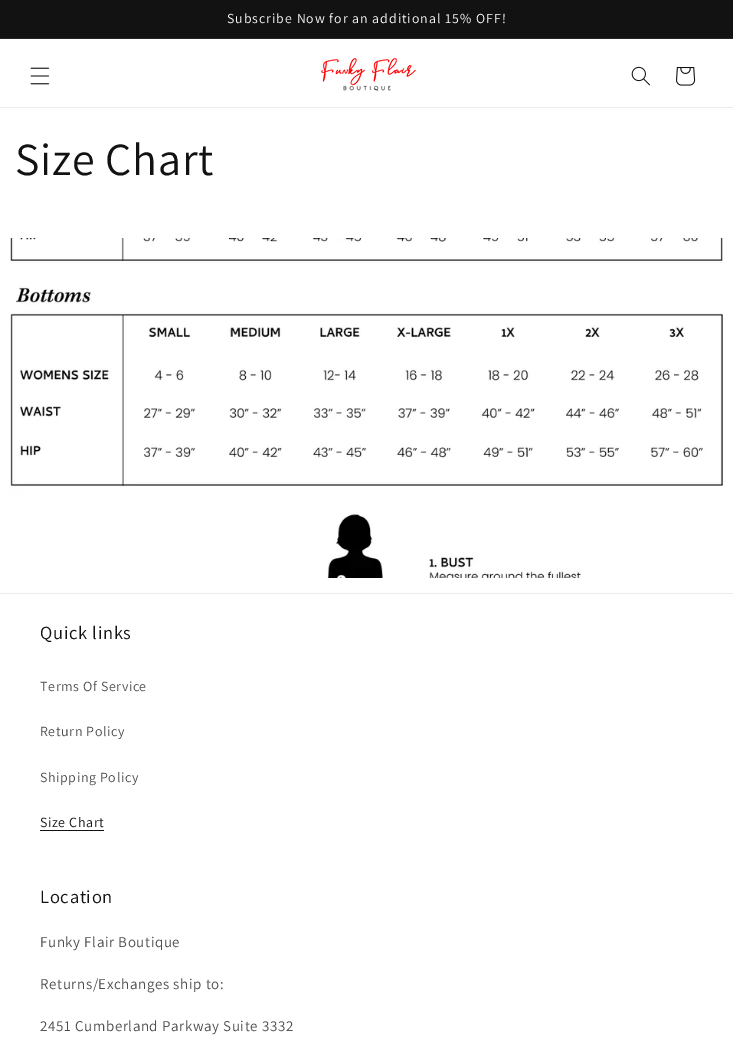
%!PS
<< /PageSize [733 1048] >> setpagedevice
/rgb { dup -16 bitshift 255 div exch dup -8 bitshift 255 and 255 div exch 255 and 255 div setrgbcolor } def
/font { [ exch dup neg 0 0 3 -1 roll 0 0 ] selectfont } def
/picture { 5 dict begin { /h /w /y /x /name } { exch def } forall
  gsave x y translate w h scale
  w h 8 [w 0 0 h 0 0] name (r) file false 3 colorimage grestore end } def
0 1048 translate 1 -1 scale
4 setmiterlimit
16#FFFFFF rgb
0 0 733 1048 rectfill
16#121212 rgb
0 0 733 38 rectfill
16#252525 rgb
0 38 733 1 rectfill
/Assistant-Regular 13.8 font
16#FFFFFF rgb
227 23 moveto 1 0 (Subscribe Now for an additional 15% OFF!) ashow
16#ECECEC rgb
0 107 733 1 rectfill
(pic1.raw) 30 67 20 18 picture
(pic2.raw) 321 58 95 33 picture
(pic3.raw) 631 66 19 20 picture
(pic4.raw) 676 67 20 19 picture
/Assistant-Regular 46 font
16#121212 rgb
15 175 moveto 0.75 0 (Size Chart) ashow
(pic5.raw) 0 238 733 340 picture
16#ECECEC rgb
0 593 733 1 rectfill
/Assistant-Regular 18.5 font
16#121212 rgb
40 639 moveto 0.75 0 (Quick links) ashow
/Assistant-Regular 14 font
16#4D4D4D rgb
40 691 moveto 0.6 0 (Terms Of Service) ashow
40 736 moveto 0.6 0 (Return Policy) ashow
40 782 moveto 0.6 0 (Shipping Policy) ashow
16#121212 rgb
40 827 moveto 0.6 0 (Size Chart) ashow
40 830 64 1 rectfill
/Assistant-Regular 18.5 font
40 903 moveto 0.75 0 (Location) ashow
/Assistant-Regular 15 font
16#4D4D4D rgb
40 947 moveto 0.6 0 (Funky Flair Boutique) ashow
40 989 moveto 0.6 0 (Returns/Exchanges ship to:) ashow
40 1031 moveto 0.6 0 (2451 Cumberland Parkway Suite 3332) ashow
showpage
